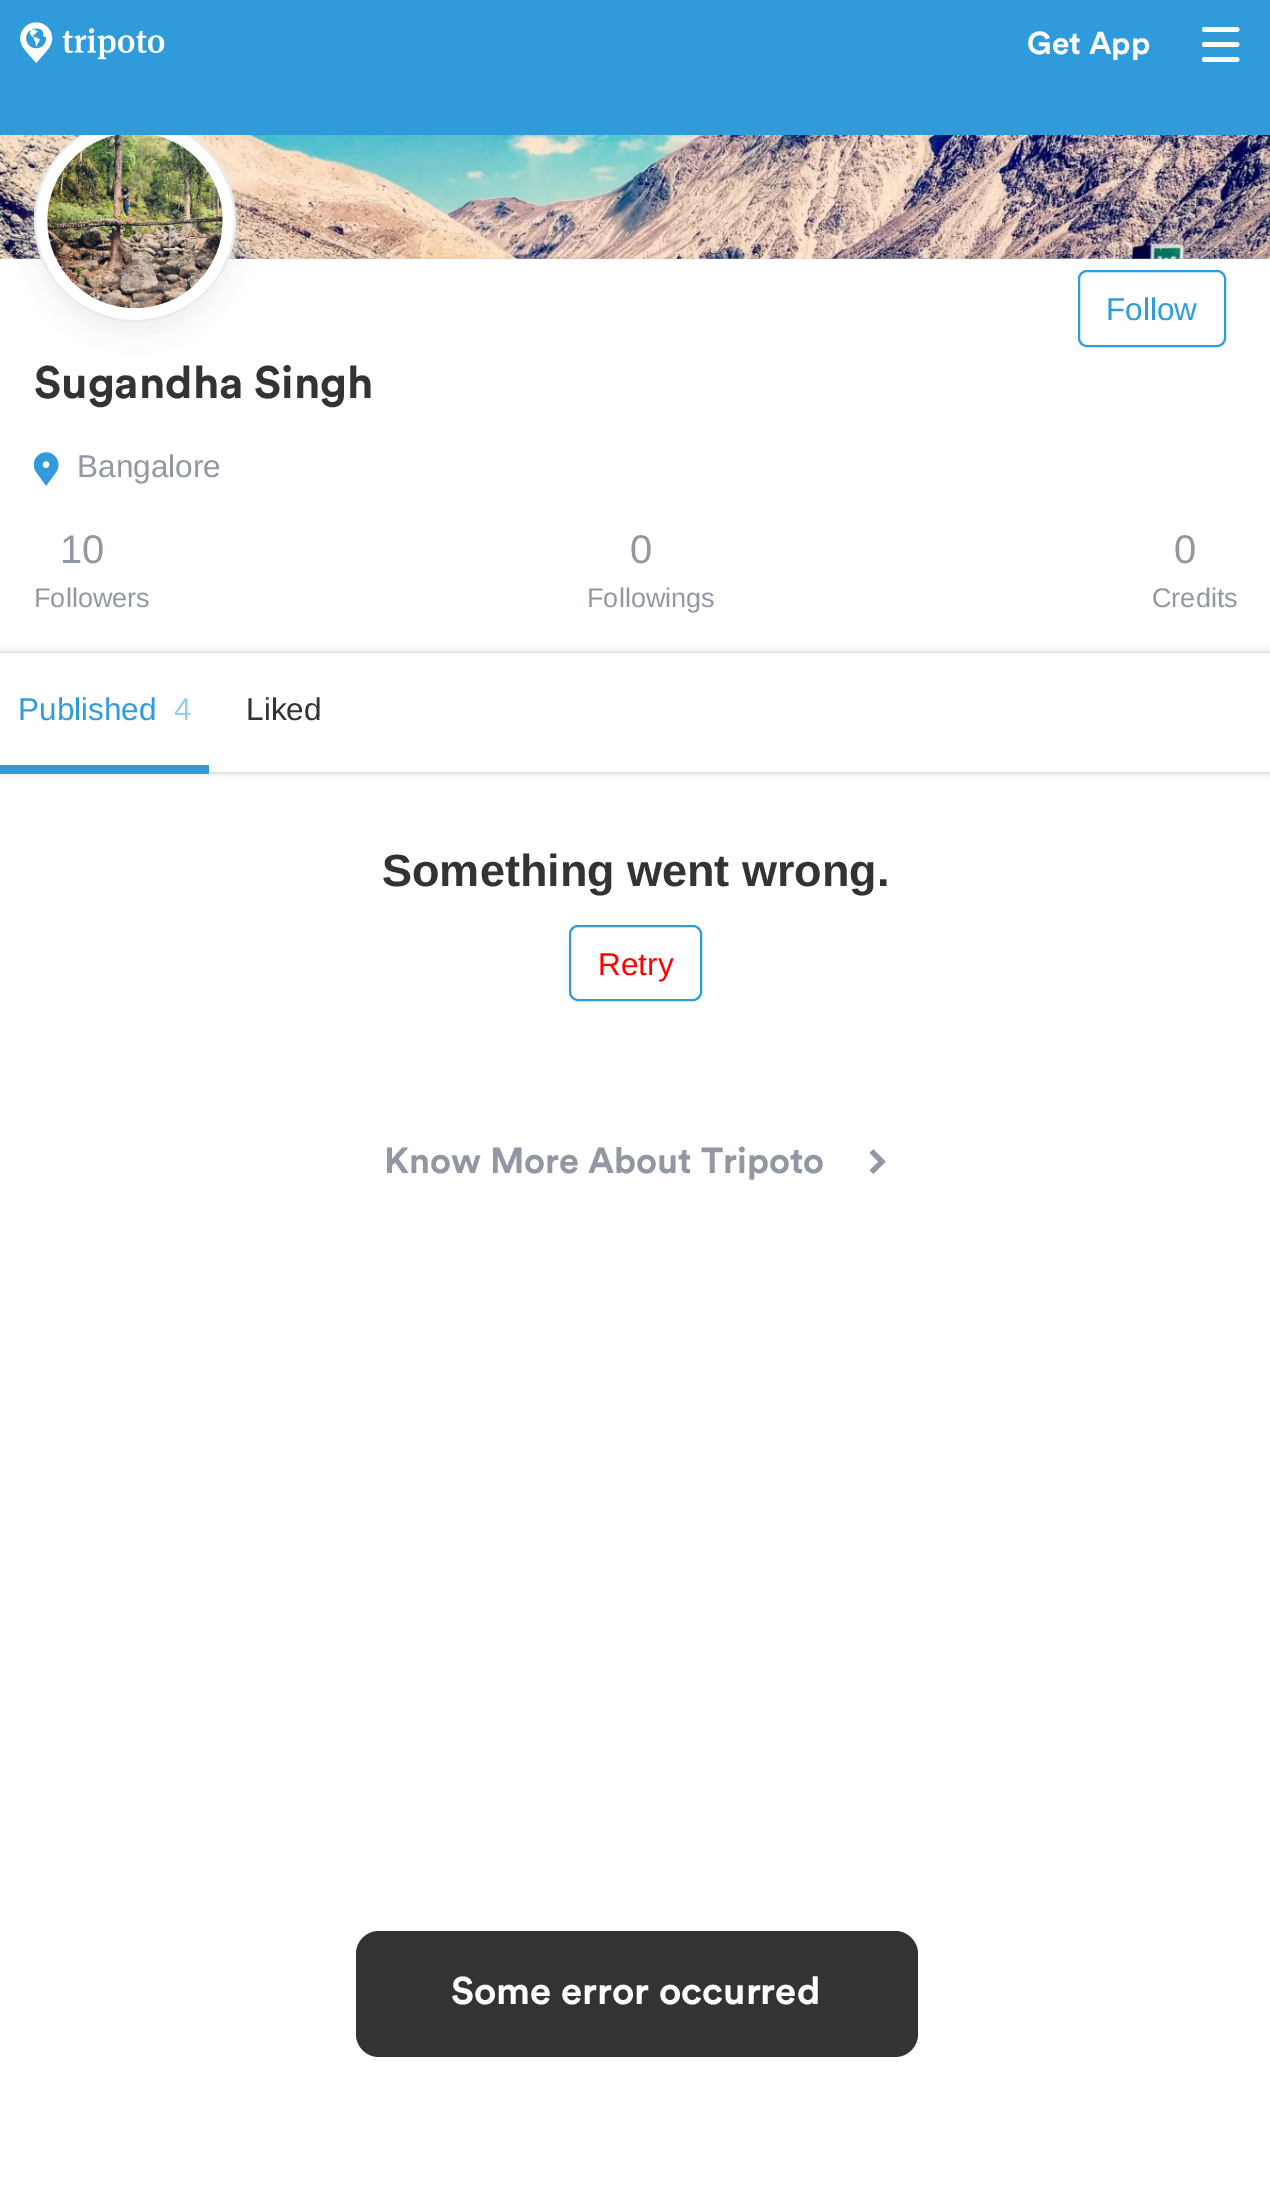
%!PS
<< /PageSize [1270 2187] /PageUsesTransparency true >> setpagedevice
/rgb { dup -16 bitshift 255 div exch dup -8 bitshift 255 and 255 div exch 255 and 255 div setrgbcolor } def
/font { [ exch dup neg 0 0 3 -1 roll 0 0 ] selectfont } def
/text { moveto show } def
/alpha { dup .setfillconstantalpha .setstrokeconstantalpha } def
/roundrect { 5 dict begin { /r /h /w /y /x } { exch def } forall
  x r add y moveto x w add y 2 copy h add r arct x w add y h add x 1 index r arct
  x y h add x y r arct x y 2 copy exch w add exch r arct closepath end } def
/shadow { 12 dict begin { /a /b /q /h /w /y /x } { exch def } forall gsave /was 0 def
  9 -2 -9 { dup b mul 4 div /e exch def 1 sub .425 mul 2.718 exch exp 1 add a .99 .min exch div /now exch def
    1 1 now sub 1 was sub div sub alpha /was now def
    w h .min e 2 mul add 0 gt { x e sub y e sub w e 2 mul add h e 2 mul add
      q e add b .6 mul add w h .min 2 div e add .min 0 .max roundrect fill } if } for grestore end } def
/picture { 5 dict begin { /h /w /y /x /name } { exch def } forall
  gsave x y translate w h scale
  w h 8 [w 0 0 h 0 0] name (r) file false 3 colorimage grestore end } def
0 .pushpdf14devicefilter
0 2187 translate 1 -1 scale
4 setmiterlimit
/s1 { /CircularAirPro-Bold 31.5 font 16#FFFFFF rgb } def
/s2 { /LiberationSans-Regular 31.5 font 16#2F9BDB rgb } def
/s3 { /CircularAirPro-Bold 45 font 16#333333 rgb } def
/s4 { /LiberationSans-Regular 31.5 font 16#9197A3 rgb } def
/s5 { /LiberationSans-Regular 40 font 16#9197A3 rgb } def
/s6 { /LiberationSans-Regular 27 font 16#9197A3 rgb } def
/s7 { /LiberationSans-Regular 31.5 font 16#97CDED rgb } def
/s8 { /LiberationSans-Regular 31.5 font 16#333333 rgb } def
/s9 { /LiberationSans-Bold 45 font 16#333333 rgb } def
/s10 { /LiberationSans-Regular 31.5 font 16#FF0000 rgb } def
/s11 { /CircularAirPro-Bold 36 font 16#9197A3 rgb } def
/s12 { /CircularAirPro-Bold 38.25 font 16#FFFFFF rgb } def
16#FFFFFF rgb
0 0 1270 2187 rectfill
(pic3.raw) 0 135 1270 124 picture
16#DDDDDD rgb
34 131 202 202 101 11 0.5 shadow
16#FFFFFF rgb
34 119 202 203 101 roundrect fill
0.2 alpha
16#9197A3 rgb
2 setlinewidth
35 120 200 201 100 roundrect stroke
1 alpha
16#2F9BDB rgb
0 0 1270 135 rectfill
(pic1.raw) 20 22 145 41 picture
s1
(Get App) 1027 54 text
(pic2.raw) 1202 27 38 35 picture
(pic4.raw) 47 135 176 174 picture
16#2F9BDB rgb
1079 271 146 75 8 roundrect stroke
s2
(Follow) 1106 320 text
s3
(Sugandha Singh) 34 398 text
(pic5.raw) 34 452 25 34 picture
s4
(Bangalore) 77 477 text
s5
(10) 60 563 text
s6
(Followers) 34 607 text
s5
(0) 630 563 text
s6
(Followings) 587 607 text
s5
(0) 1174 563 text
s6
(Credits) 1152 607 text
16#000000 rgb
0 653 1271 119 0 3.5 0.25 shadow
16#FFFFFF rgb
0 653 1270 119 rectfill
16#2F9BDB rgb
0 765 209 9 rectfill
s2
(Published) 18 720 text
s7
(4) 174 720 text
s8
(Liked) 246 720 text
s9
(Something went wrong.) 382 886 text
16#2F9BDB rgb
570 926 131 74 8 roundrect stroke
s10
(Retry) 598 975 text
s11
(Know More About Tripoto) 384 1173 text
(pic6.raw) 869 1149 17 25 picture
16#333333 rgb
356 1931 562 126 23 roundrect fill
s12
(Some error occurred) 451 2004 text
.poppdf14devicefilter showpage
